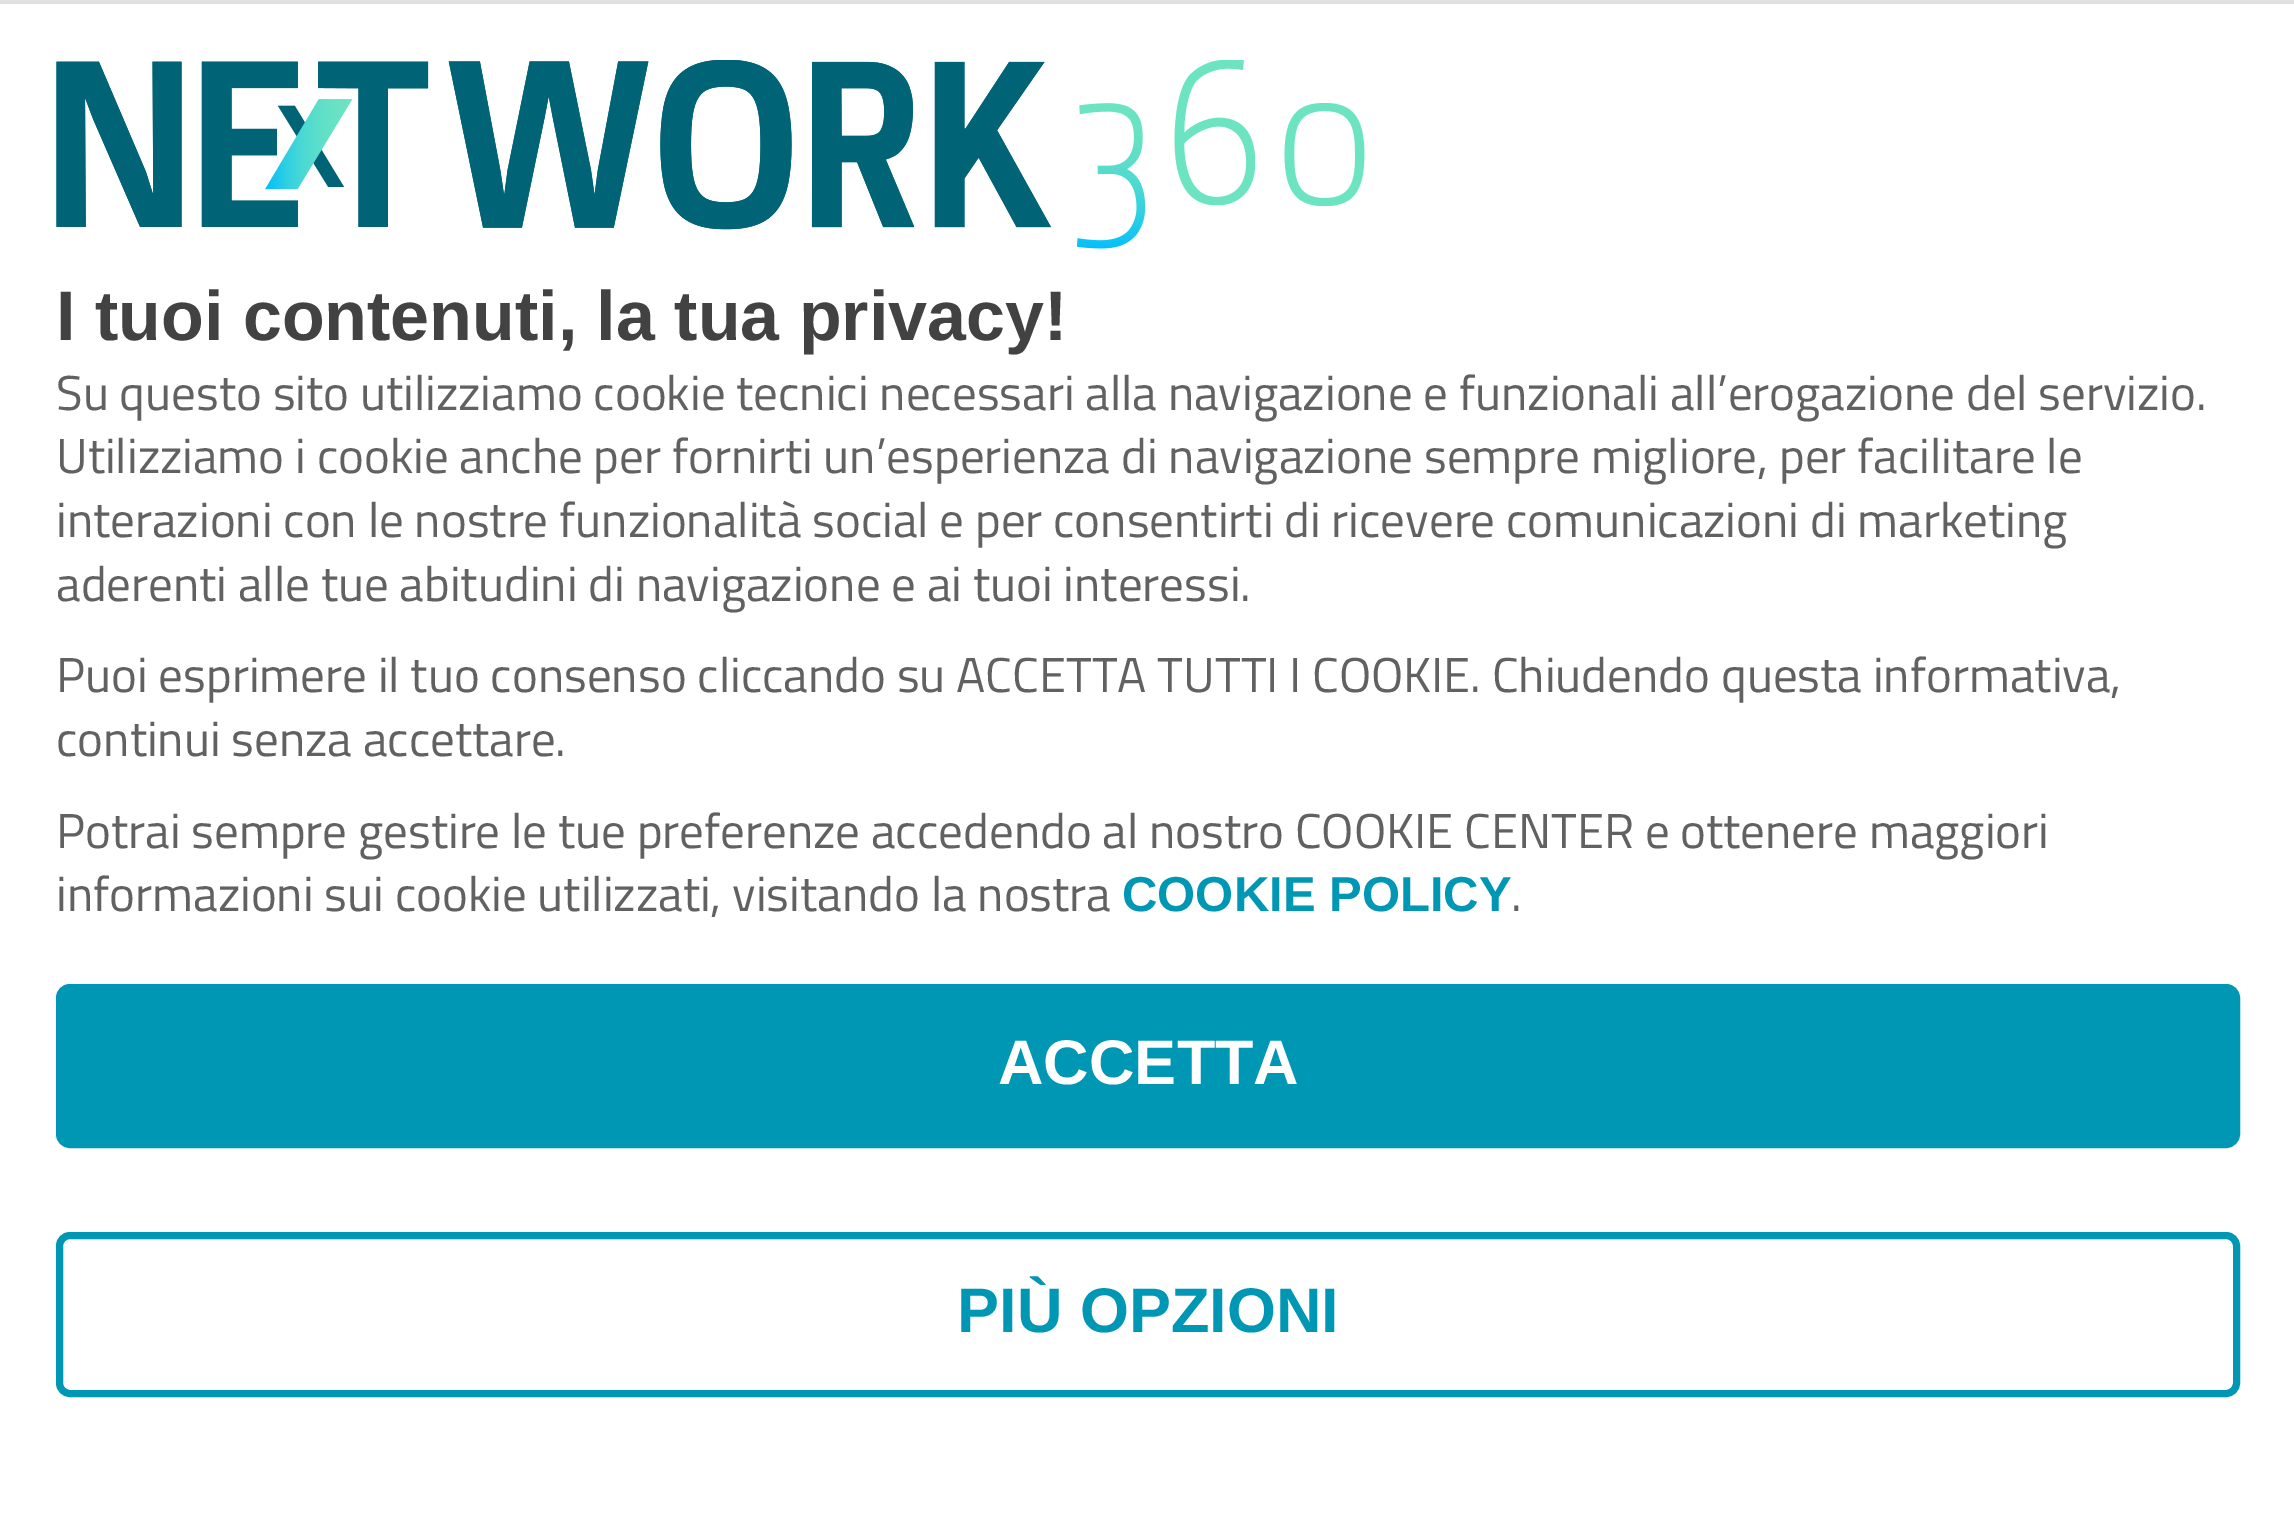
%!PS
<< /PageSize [2294 1534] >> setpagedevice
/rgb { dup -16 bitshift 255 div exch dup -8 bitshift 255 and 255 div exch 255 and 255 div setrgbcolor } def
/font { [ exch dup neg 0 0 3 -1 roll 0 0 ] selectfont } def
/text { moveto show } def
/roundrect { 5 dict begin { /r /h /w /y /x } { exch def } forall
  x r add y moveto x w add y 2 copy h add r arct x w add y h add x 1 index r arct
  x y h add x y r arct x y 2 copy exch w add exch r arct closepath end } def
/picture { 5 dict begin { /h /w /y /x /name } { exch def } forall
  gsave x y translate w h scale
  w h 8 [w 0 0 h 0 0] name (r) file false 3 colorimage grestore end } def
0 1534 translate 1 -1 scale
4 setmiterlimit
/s1 { /LiberationSans-Bold 70 font 16#424242 rgb } def
/s2 { /TitilliumWeb-Regular 49 font 16#616161 rgb } def
/s3 { /LiberationSans-Bold 49 font 16#0097B5 rgb } def
/s4 { /LiberationSans-Bold 63 font 16#FFFFFF rgb } def
/s5 { /LiberationSans-Bold 63 font 16#0097B5 rgb } def
16#FFFFFF rgb
0 0 2294 1534 rectfill
16#E0E0E0 rgb
0 0 2294 4 rectfill
(pic1.raw) 56 60 1309 189 picture
s1
(I tuoi contenuti, la tua privacy!) 56 340 text
s2
(Su questo sito utilizziamo cookie tecnici necessari alla navigazione e funzionali all’erogazione del servizio.) 56 410 text
(Utilizziamo i cookie anche per fornirti un’esperienza di navigazione sempre migliore, per facilitare le) 56 473 text
(interazioni con le nostre funzionalità social e per consentirti di ricevere comunicazioni di marketing) 56 537 text
(aderenti alle tue abitudini di navigazione e ai tuoi interessi.) 56 601 text
(Puoi esprimere il tuo consenso cliccando su ACCETTA TUTTI I COOKIE. Chiudendo questa informativa,) 56 692 text
(continui senza accettare.) 56 756 text
(Potrai sempre gestire le tue preferenze accedendo al nostro COOKIE CENTER e ottenere maggiori) 56 848 text
(informazioni sui cookie utilizzati, visitando la nostra) 56 911 text
s3
(COOKIE POLICY) 1122 911 text
s2
(.) 1511 911 text
16#0097B5 rgb
59.5 987.5 2177 157 10.5 roundrect gsave fill grestore
7 setlinewidth
stroke
s4
(ACCETTA) 998 1084 text
16#0097B5 rgb
59.5 1235.5 2177 158 10.5 roundrect stroke
(PIÙ OPZIONI) 957 1332 text
showpage
